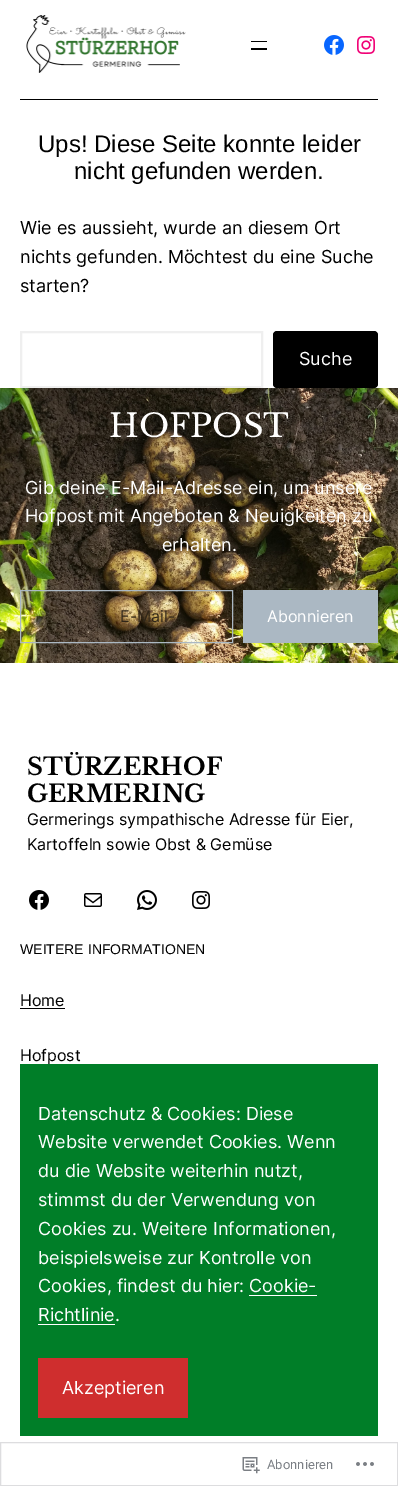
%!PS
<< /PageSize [398 1486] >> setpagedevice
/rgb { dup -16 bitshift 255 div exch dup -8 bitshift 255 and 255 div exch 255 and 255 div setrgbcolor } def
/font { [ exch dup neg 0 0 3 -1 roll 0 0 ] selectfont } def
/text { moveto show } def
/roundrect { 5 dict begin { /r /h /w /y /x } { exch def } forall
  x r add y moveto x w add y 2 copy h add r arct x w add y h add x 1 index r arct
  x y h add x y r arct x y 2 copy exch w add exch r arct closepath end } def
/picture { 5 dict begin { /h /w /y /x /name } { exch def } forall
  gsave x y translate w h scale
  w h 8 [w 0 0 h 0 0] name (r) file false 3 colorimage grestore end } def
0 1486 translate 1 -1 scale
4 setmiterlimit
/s1 { /LiberationSans-Regular 24 font 16#000000 rgb } def
/s2 { /Inter-Regular 18 font 16#000000 rgb } def
/s3 { /Inter-Regular 18 font 16#FFFFFF rgb } def
/s4 { /LibreBaskerville-Regular 32 font 16#FFFFFF rgb } def
/s5 { /Inter-Regular 16 font 16#302618 rgb } def
/s6 { /Inter-Regular 16 font 16#FFFFFF rgb } def
/s7 { /LibreBaskerville-Bold 24 font 16#000000 rgb } def
/s8 { /Inter-Regular 16 font 16#000000 rgb } def
/s9 { /LiberationSans-Regular 14 font 16#000000 rgb } def
/s10 { /Roboto-Regular 13 font 16#7B7F85 rgb } def
16#FFFFFF rgb
0 0 398 1486 rectfill
(pic1.raw) 26 15 160 58 picture
16#000000 rgb
251 41 16 1 rectfill
251 48 16 2 rectfill
(pic2.raw) 324 35 20 20 picture
(pic3.raw) 357 36 18 18 picture
20 99 358 1 rectfill
s1
(Ups! Diese Seite konnte leider) 38 152 text
(nicht gefunden werden.) 74 179 text
s2
(Wie es aussieht, wurde an diesem Ort) 20 234 text
(nichts gefunden. Möchtest du eine Suche) 20 263 text
(starten?) 20 292 text
16#EFEFEF rgb
2 setlinewidth
21 332 241 55 rectstroke
16#000000 rgb
273 331 105 57 4 roundrect fill
s3
(Suche) 299 365 text
(pic4.raw) 0 388 398 275 picture
s4
(HOFPOST) 109 437 text
s3
(Gib deine E-Mail-Adresse ein, um unsere) 25 494 text
(Hofpost mit Angeboten & Neuigkeiten zu) 25 522 text
(erhalten.) 162 551 text
16#ABB8C3 rgb
1 setlinewidth
20.5 590.5 212 52 rectstroke
s5
(E-Mail-) 120 622 text
16#ABB8C3 rgb
243 590 135 53 rectfill
s6
(Abonnieren) 267 622 text
s7
(STÜRZERHOF) 27 775 text
(GERMERING) 27 802 text
s8
(Germerings sympathische Adresse für Eier,) 27 825 text
(Kartoffeln sowie Obst & Gemüse) 27 850 text
(pic5.raw) 29 890 20 20 picture
(pic6.raw) 84 893 18 14 picture
(pic7.raw) 137 890 20 20 picture
(pic8.raw) 192 891 18 18 picture
s9
(WEITERE INFORMATIONEN) 20 954 text
s8
(Home) 20 1006 text
20 1008 45 1 rectfill
(Hofpost) 20 1061 text
16#007E28 rgb
20 1064 358 372 rectfill
s3
(Datenschutz & Cookies: Diese) 38 1120 text
(Website verwendet Cookies. Wenn) 38 1148 text
(du die Website weiterhin nutzt,) 38 1177 text
(stimmst du der Verwendung von) 38 1206 text
(Cookies zu. Weitere Informationen,) 38 1235 text
(beispielsweise zur Kontrolle von) 38 1264 text
(Cookies, findest du hier: Cookie-) 38 1292 text
(Richtlinie.) 38 1321 text
249 1295 68 1 rectfill
38 1324 77 1 rectfill
16#CF2E2E rgb
38 1358 150 60 rectfill
s3
(Akzeptieren) 62 1394 text
16#DDDDDF rgb
0.5 1442.5 397 43 rectstroke
(pic9.raw) 242 1457 18 17 picture
s10
(Abonnieren) 267 1469 text
(pic10.raw) 356 1462 18 4 picture
showpage
